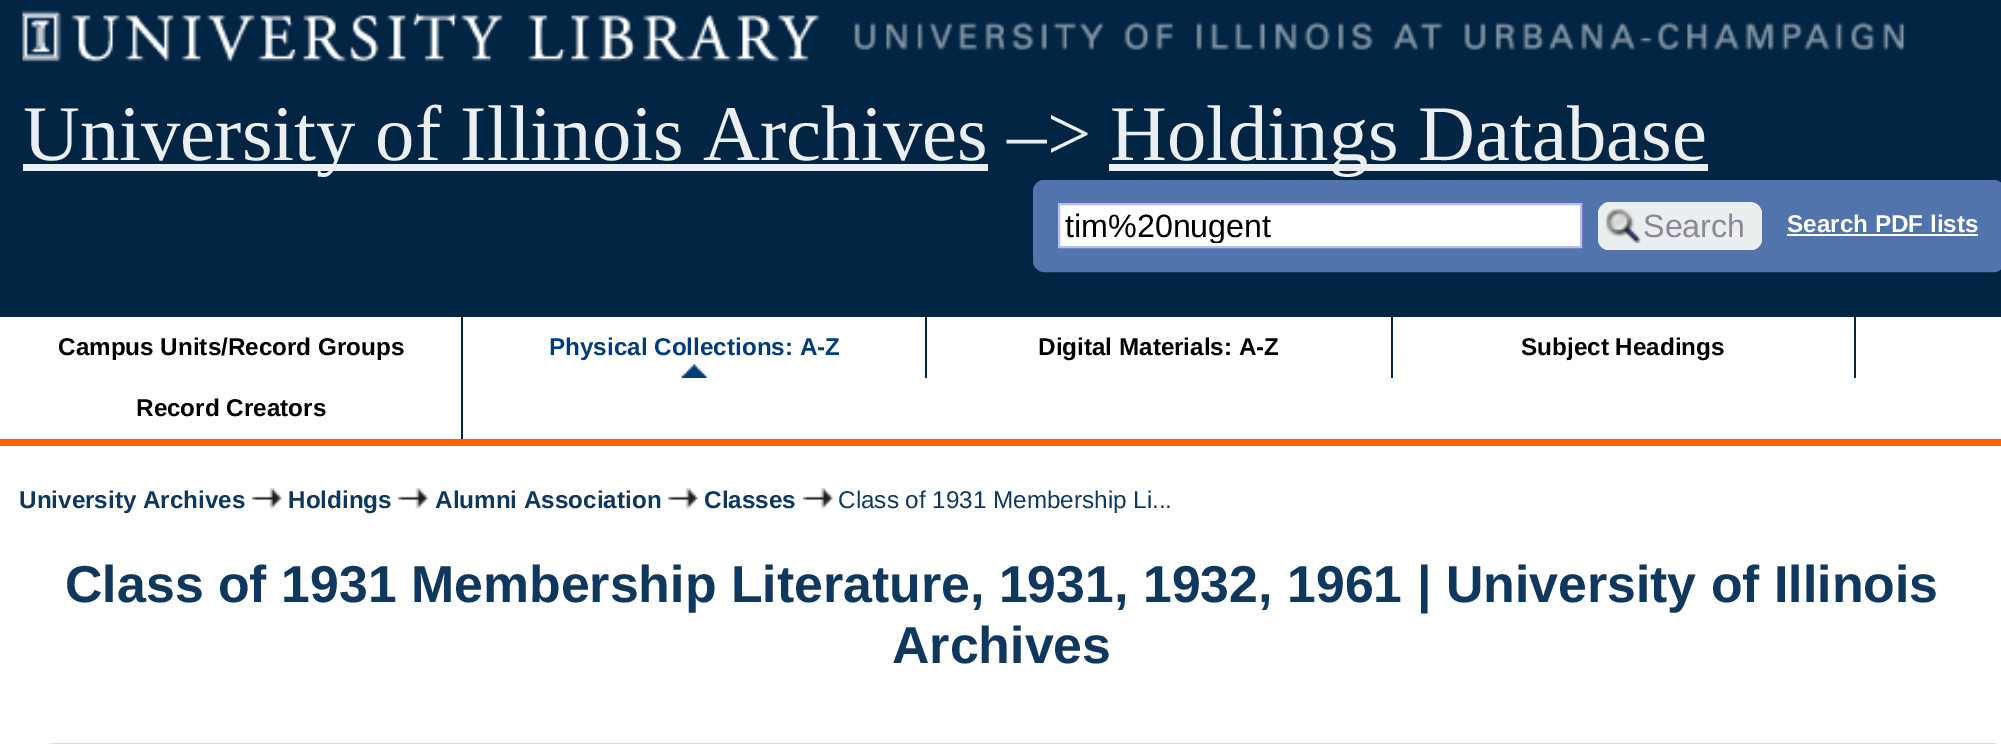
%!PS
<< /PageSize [2001 744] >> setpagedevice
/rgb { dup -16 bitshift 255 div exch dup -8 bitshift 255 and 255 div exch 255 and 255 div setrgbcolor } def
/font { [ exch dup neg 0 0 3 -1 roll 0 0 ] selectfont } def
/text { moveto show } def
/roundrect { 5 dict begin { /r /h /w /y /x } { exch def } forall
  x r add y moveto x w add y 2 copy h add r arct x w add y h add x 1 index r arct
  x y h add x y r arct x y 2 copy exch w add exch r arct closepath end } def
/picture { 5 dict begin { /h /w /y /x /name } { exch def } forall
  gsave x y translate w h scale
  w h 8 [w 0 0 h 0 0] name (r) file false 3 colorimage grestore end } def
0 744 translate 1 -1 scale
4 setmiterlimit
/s1 { /LiberationSerif-Regular 78.75 font 16#ECEFF1 rgb } def
/s2 { /LiberationSans-Regular 32.25 font 16#000000 rgb } def
/s3 { /LiberationSans-Regular 32.25 font 16#888899 rgb } def
/s4 { /LiberationSans-Bold 24.25 font 16#FFFFFF rgb } def
/s5 { /LiberationSans-Bold 24.25 font 16#000000 rgb } def
/s6 { /LiberationSans-Bold 24.25 font 16#003C7B rgb } def
/s7 { /LiberationSans-Bold 24.25 font 16#10375D rgb } def
/s8 { /LiberationSans-Regular 24.25 font 16#10375D rgb } def
/s9 { /LiberationSans-Bold 51.85 font 16#10375D rgb } def
16#FFFFFF rgb
0 0 2001 744 rectfill
16#022544 rgb
0 0 2001 317 rectfill
(pic1.raw) 22 10 1883 52 picture
16#FA6300 rgb
0 439 2001 7 rectfill
16#ECEFF1 rgb
23 164 965 7 rectfill
s1
(University of Illinois Archives –>) 23 160 text
1109 164 599 7 rectfill
(Holdings Database) 1110 160 text
16#5274AC rgb
1034 181 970 90 10 roundrect gsave fill grestore
2 setlinewidth
stroke
16#FFFFFF rgb
1059 204 moveto 1581 204 lineto 1581 247 lineto 1059 247 lineto closepath gsave fill grestore
16#BBBBEE rgb
stroke
gsave
1064 207 511 36 rectclip
s2
(tim%20nugent) 1065 237 text
grestore
16#EBEEEF rgb
1598 203 164 47 11 roundrect fill
(pic2.raw) 1604 207 37 36 picture
1609 202 moveto 1750 202 lineto 1757 202 1762 208 1762 214 curveto 1762 238 lineto 1762 245 1757 250 1750 250 curveto 1609 250 lineto 1603 250 1598 245 1598 238 curveto 1598 214 lineto 1598 208 1603 202 1609 202 curveto closepath 1609 205 moveto 1750 205 lineto 1755 205 1760 209 1760 214 curveto 1760 238 lineto 1760 243 1755 248 1750 248 curveto 1609 248 lineto 1603 248 1598 243 1598 238 curveto 1598 214 lineto 1598 209 1603 205 1609 205 curveto closepath eofill
s3
(Search) 1643 237 text
s4
(Search PDF lists) 1787 232 text
1787 234 191 2 rectfill
16#022544 rgb
461 317 2 122 rectfill
s5
(Campus Units/Record Groups) 58 355 text
(pic3.raw) 681 364 26 14 picture
16#022544 rgb
925 317 2 61 rectfill
s6
(Physical Collections: A-Z) 549 355 text
16#022544 rgb
1391 317 2 61 rectfill
s5
(Digital Materials: A-Z) 1038 355 text
16#022544 rgb
1854 317 2 61 rectfill
s5
(Subject Headings) 1521 355 text
(Record Creators) 136 416 text
s7
(University Archives) 19 508 text
(pic4.raw) 252 488 30 21 picture
(Holdings) 288 508 text
(pic5.raw) 398 488 30 21 picture
(Alumni Association) 435 508 text
(pic6.raw) 668 488 30 21 picture
(Classes) 704 508 text
(pic5.raw) 803 488 30 21 picture
s8
(Class of 1931 Membership Li...) 838 508 text
s9
(Class of 1931 Membership Literature, 1931, 1932, 1961 | University of Illinois) 65 602 text
(Archives) 892 663 text
16#DDDDDD rgb
33 744 877 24 22 roundrect stroke
858 744 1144 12 10 roundrect stroke
showpage
